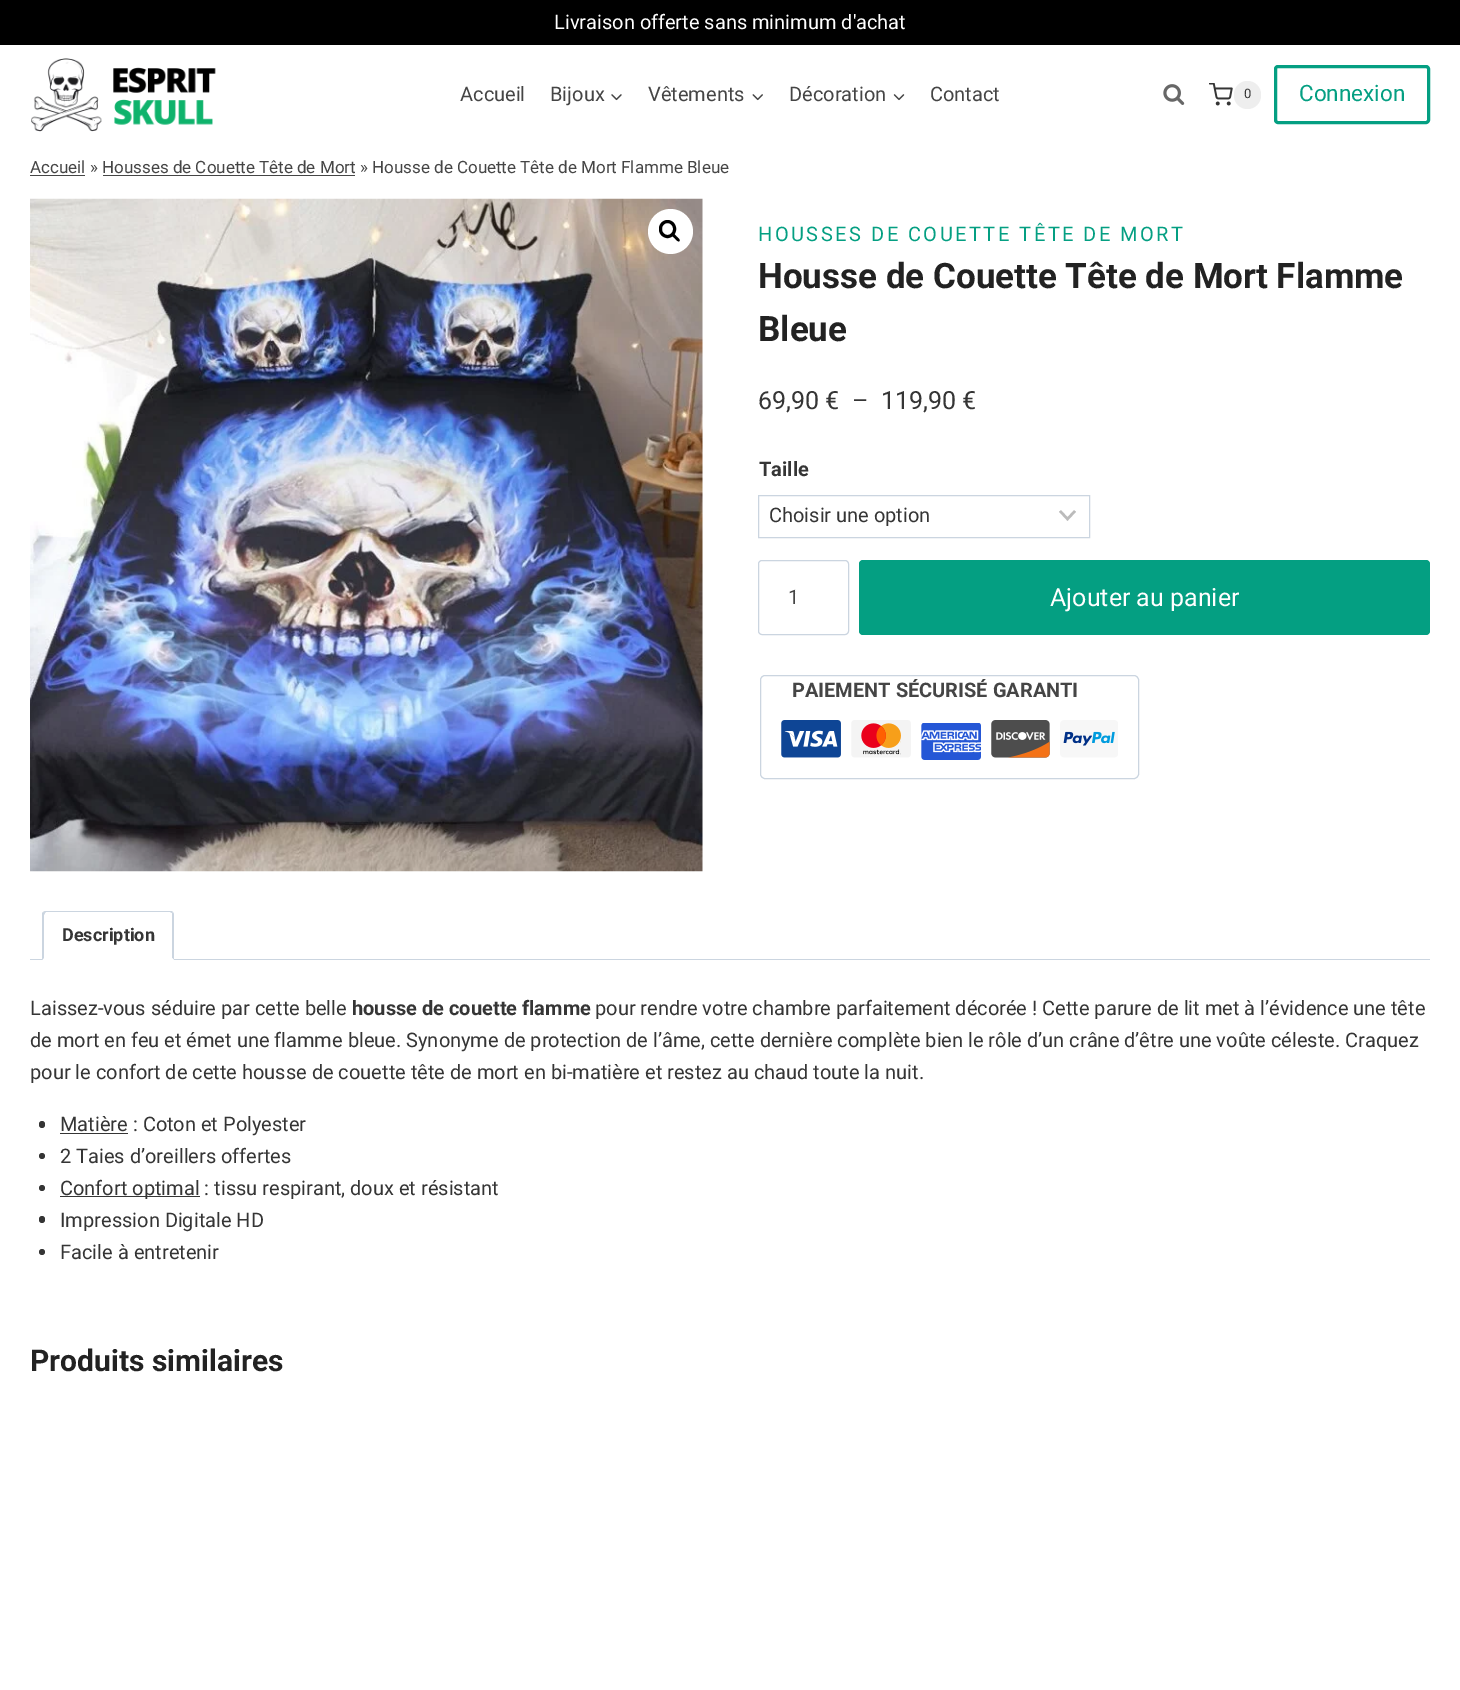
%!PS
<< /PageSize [1460 1690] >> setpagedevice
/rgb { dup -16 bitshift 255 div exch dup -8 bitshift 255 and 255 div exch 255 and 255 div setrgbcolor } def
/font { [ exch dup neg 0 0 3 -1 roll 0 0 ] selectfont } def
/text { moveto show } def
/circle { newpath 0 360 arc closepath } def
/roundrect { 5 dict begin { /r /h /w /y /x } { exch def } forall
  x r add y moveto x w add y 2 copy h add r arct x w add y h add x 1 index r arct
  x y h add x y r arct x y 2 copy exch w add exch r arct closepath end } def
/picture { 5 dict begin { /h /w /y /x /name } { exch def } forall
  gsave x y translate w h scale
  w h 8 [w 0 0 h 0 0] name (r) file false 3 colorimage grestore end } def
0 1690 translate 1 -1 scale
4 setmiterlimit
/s1 { /Roboto-Regular 20 font 16#FFFFFF rgb } def
/s2 { /Roboto-Regular 20 font 16#454545 rgb } def
/s3 { /Roboto-Regular 13 font 16#353535 rgb } def
/s4 { /Roboto-Regular 22.5 font 16#049F82 rgb } def
/s5 { /Roboto-Regular 17 font 16#454545 rgb } def
/s6 { /Roboto-Bold 35 font 16#222222 rgb } def
/s7 { /Roboto-Regular 25 font 16#353535 rgb } def
/s8 { /Roboto-Bold 20 font 16#353535 rgb } def
/s9 { /Roboto-Regular 20 font 16#353535 rgb } def
/s10 { /Roboto-Regular 25 font 16#FFFFFF rgb } def
/s11 { /Roboto-Bold 20 font 16#454545 rgb } def
/s12 { /Roboto-Bold 18 font 16#353535 rgb } def
/s13 { /Roboto-Bold 30 font 16#222222 rgb } def
16#FFFFFF rgb
0 0 1460 1690 rectfill
16#000000 rgb
0 0 1460 45 rectfill
s1
(Livraison offerte sans minimum d'achat) 554 29 text
(pic1.raw) 31 58 185 74 picture
s2
(Accueil) 460 101 text
(Bijoux) 550 101 text
(pic2.raw) 611 94 11 7 picture
(Vêtements) 648 101 text
(pic3.raw) 752 94 11 7 picture
(Décoration) 789 101 text
(pic4.raw) 893 94 12 7 picture
(Contact) 930 101 text
(pic5.raw) 1163 84 22 21 picture
(pic6.raw) 1209 83 24 23 picture
16#EEEEEE rgb
1234 81 27 28 13.5 roundrect fill
s3
(0) 1244 98 text
16#049F82 rgb
3 setlinewidth
1275.5 66.5 153 56 2.5 roundrect stroke
s4
(Connexion) 1299 101 text
s5
(Accueil » Housses de Couette Tête de Mort » Housse de Couette Tête de Mort Flamme Bleue) 30 173 text
30 175 55 1 rectfill
103 175 252 1 rectfill
(pic7.raw) 30 198 673 674 picture
16#FFFFFF rgb
670.5 231.5 22.5 circle fill
16#000000 rgb
660.5 221.5 14 15 7 roundrect stroke
672 234 moveto 673.5 232.5 676 236 676.5 236.5 curveto 677.5 237.5 680.5 239.5 679.5 241 curveto 678 242.5 675.5 239 675 238.5 curveto 674 237.5 671 235.5 672 234 curveto closepath fill
/Roboto-Regular 20 font
16#049F82 rgb
758 241 moveto 2.5 0 (HOUSSES DE COUETTE TÊTE DE MORT) ashow
s6
(Housse de Couette Tête de Mort Flamme) 758 288 text
(Bleue) 758 341 text
s7
(69,90 €) 758 409 text
(–) 852 409 text
(119,90 €) 881 409 text
s8
(Taille) 759 476 text
16#BBBBBB rgb
2.5 setlinewidth
1060 511 moveto 1067.5 519 lineto 1075 511 lineto stroke
16#CBD5E0 rgb
1 setlinewidth
758.5 495.5 331 42 rectstroke
s9
(Choisir une option) 769 522 text
16#CBD5E0 rgb
758.5 560.5 90 74 3.5 roundrect stroke
s2
(1) 788 604 text
16#049F82 rgb
859 560 571 75 4 roundrect fill
s10
(Ajouter au panier) 1050 606 text
16#CBD5E0 rgb
760.5 675.5 378 103 4.5 roundrect stroke
s11
(PAIEMENT SÉCURISÉ GARANTI) 792 697 text
(pic8.raw) 781 720 60 38 picture
(pic9.raw) 851 720 60 38 picture
(pic10.raw) 921 723 60 37 picture
(pic11.raw) 991 720 59 38 picture
(pic12.raw) 1060 720 58 38 picture
16#CBD5E0 rgb
30 959 1400 1 rectfill
16#FFFFFF rgb
47 911 moveto 170 911 lineto 172 911 174 913 174 915 curveto 174 960 lineto 43 960 lineto 43 915 lineto 43 913 45 911 47 911 curveto closepath fill
gsave
30 911 1400 49 rectclip
16#CBD5E0 rgb
46 912 moveto 45 913 lineto 43 912 lineto 45 911 lineto 150 911 lineto 158 911 167 907 173 912 curveto 172 913 lineto 170 912 lineto closepath fill
grestore
16#CBD5E0 rgb
174 914 moveto 174 960 lineto 172 958 lineto 172 915 lineto 172 913 lineto 173 912 lineto closepath fill
16#FFFFFF rgb
174 960 moveto 172 958 lineto 172 959 lineto 44 959 lineto 44 958 lineto 42 960 lineto closepath fill
16#CBD5E0 rgb
42 960 moveto 42 913 lineto 43 912 lineto 45 913 lineto 44 915 lineto 44 958 lineto closepath fill
s12
(Description) 62 941 text
s9
(Laissez-vous séduire par cette belle) 30 1015 text
s8
(housse de couette flamme) 352 1015 text
s9
(pour rendre votre chambre parfaitement décorée ! Cette parure de lit met à l’évidence une tête) 595 1015 text
(de mort en feu et émet une flamme bleue. Synonyme de protection de l’âme, cette dernière complète bien le rôle d’un crâne d’être une voûte céleste. Craquez) 30 1047 text
(pour le confort de cette housse de couette tête de mort en bi-matière et restez au chaud toute la nuit.) 30 1079 text
39 1121 6 7 3 roundrect fill
60 1133 68 1 rectfill
(Matière : Coton et Polyester) 60 1131 text
42 1156 3 circle fill
(2 Taies d’oreillers offertes) 60 1163 text
42 1188 3 circle fill
60 1196 140 1 rectfill
(Confort optimal : tissu respirant, doux et résistant) 60 1195 text
39 1216 6 7 3 roundrect fill
(Impression Digitale HD) 60 1227 text
42 1252 3 circle fill
(Facile à entretenir) 60 1259 text
s13
(Produits similaires) 30 1371 text
showpage
